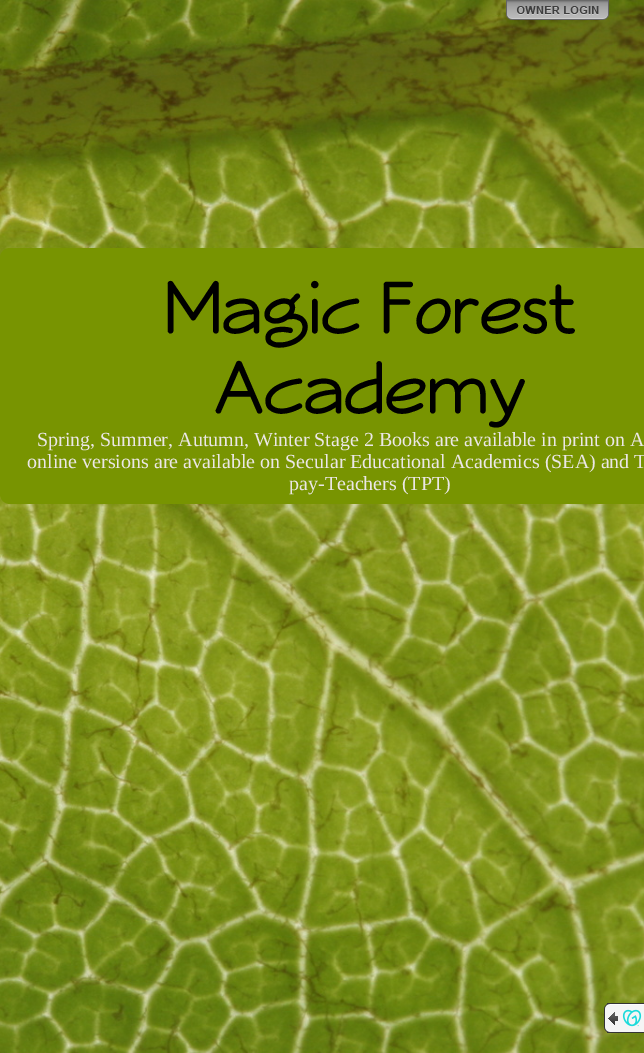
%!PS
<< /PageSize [644 1053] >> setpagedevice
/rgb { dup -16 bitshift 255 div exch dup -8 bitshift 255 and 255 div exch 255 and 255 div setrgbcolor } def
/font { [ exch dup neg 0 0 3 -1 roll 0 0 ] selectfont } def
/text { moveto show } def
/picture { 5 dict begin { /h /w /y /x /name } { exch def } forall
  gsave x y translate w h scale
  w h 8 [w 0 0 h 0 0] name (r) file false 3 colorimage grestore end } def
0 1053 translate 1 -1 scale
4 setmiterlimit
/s1 { /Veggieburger-Regular 80 font 16#000000 rgb } def
/s2 { /LiberationSerif-Regular 20 font 16#EBE7E6 rgb } def
16#FFFFFF rgb
0 0 644 1053 rectfill
(pic1.raw) 0 0 644 1053 picture
(pic2.raw) 506 0 103 20 picture
16#789401 rgb
10 248 moveto 644 248 lineto 644 504 lineto 10 504 lineto 4.5 504 0 499.5 0 494 curveto 0 258 lineto 0 252.5 4.5 248 10 248 curveto closepath fill
s1
(Magic Forest) 164 333 text
(Academy) 214 413 text
s2
(Spring, Summer, Autumn, Winter Stage 2 Books are available in print on A) 37 446 text
(online versions are available on Secular Educational Academics \(SEA\) and T) 27 468 text
(pay-Teachers \(TPT\)) 289 490 text
(pic3.raw) 607 1003 37 30 picture
(pic4.raw) 604 1004 14 28 picture
(pic5.raw) 622 1009 20 18 picture
showpage
